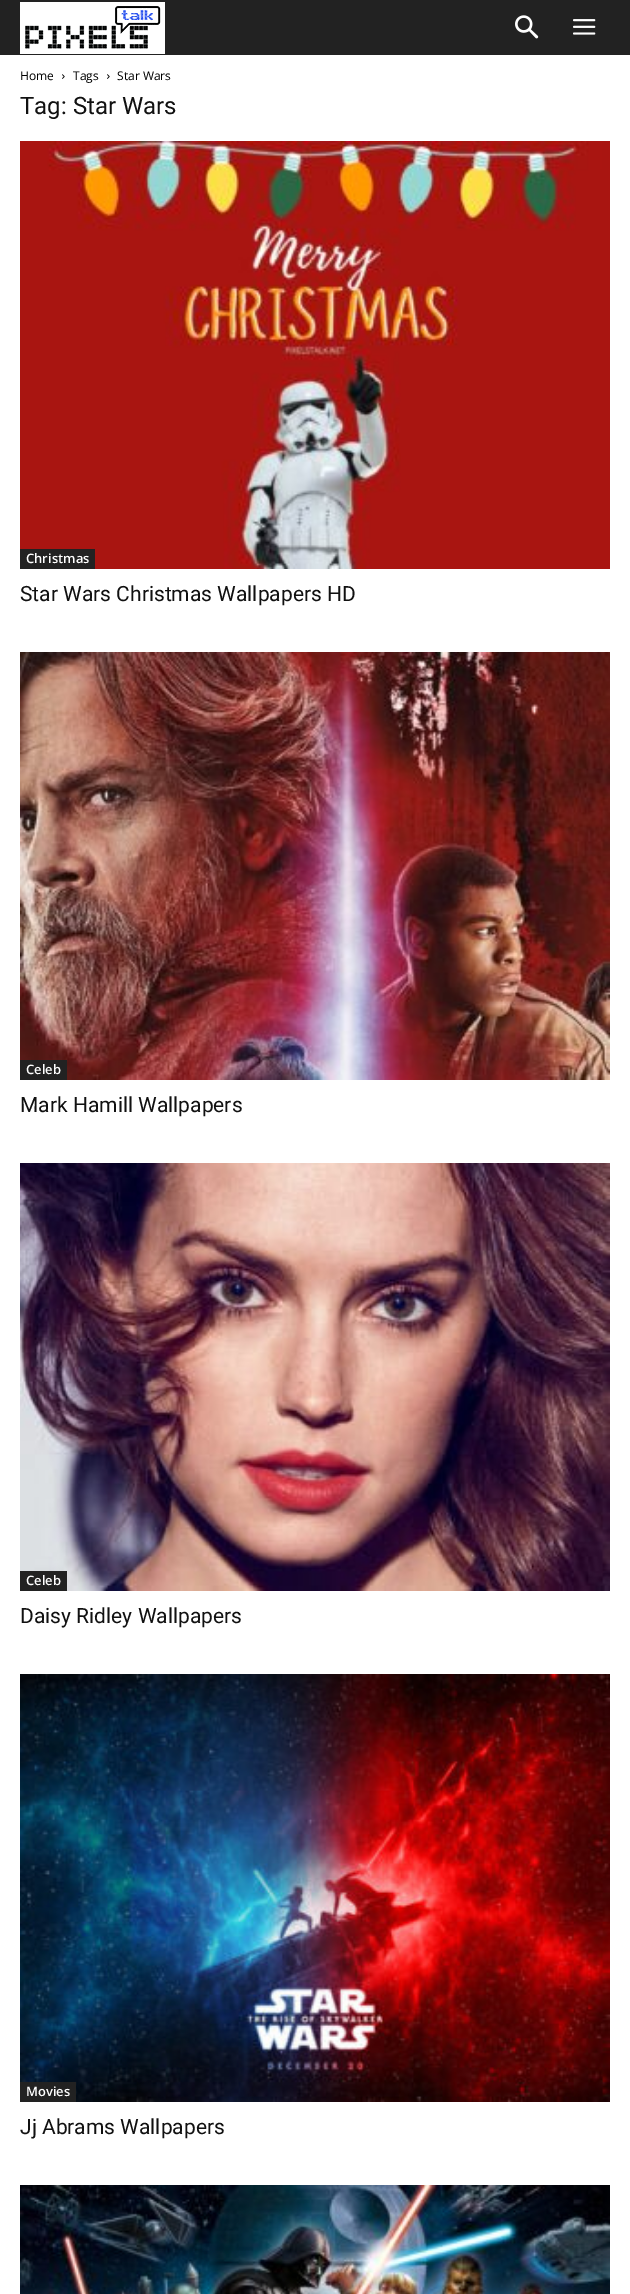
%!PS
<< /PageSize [630 2294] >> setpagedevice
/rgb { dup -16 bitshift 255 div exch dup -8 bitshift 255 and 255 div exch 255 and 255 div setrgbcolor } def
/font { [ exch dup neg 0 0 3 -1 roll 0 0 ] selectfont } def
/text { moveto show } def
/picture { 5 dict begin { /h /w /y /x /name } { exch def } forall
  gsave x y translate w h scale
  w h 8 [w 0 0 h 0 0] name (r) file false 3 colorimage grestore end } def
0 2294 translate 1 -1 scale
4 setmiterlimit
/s1 { /OpenSans-Regular 12 font 16#000000 rgb } def
/s2 { /Roboto-Regular 24 font 16#111111 rgb } def
/s3 { /OpenSans-SemiBold 13 font 16#FFFFFF rgb } def
/s4 { /Roboto-Regular 21 font 16#111111 rgb } def
16#FFFFFF rgb
0 0 630 2294 rectfill
16#222222 rgb
0 0 630 55 rectfill
(pic1.raw) 20 2 145 52 picture
(pic2.raw) 515 15 24 24 picture
(pic3.raw) 573 19 23 16 picture
s1
(Home) 20 80 text
(pic4.raw) 62 74 3 5 picture
(Tags) 73 80 text
(pic4.raw) 107 74 3 5 picture
(Star Wars) 117 80 text
s2
(Tag: Star Wars) 20 114 text
(pic5.raw) 20 141 590 428 picture
16#222222 rgb
20 549 75 20 rectfill
s3
(Christmas) 26 563 text
s4
(Star Wars Christmas Wallpapers HD) 20 601 text
(pic6.raw) 20 652 590 428 picture
16#222222 rgb
20 1060 47 20 rectfill
s3
(Celeb) 26 1074 text
s4
(Mark Hamill Wallpapers) 20 1112 text
(pic7.raw) 20 1163 590 428 picture
16#222222 rgb
20 1571 47 20 rectfill
s3
(Celeb) 26 1585 text
s4
(Daisy Ridley Wallpapers) 20 1623 text
(pic8.raw) 20 1674 590 428 picture
16#222222 rgb
20 2082 56 20 rectfill
s3
(Movies) 26 2096 text
s4
(Jj Abrams Wallpapers) 20 2134 text
(pic9.raw) 20 2185 590 109 picture
showpage
